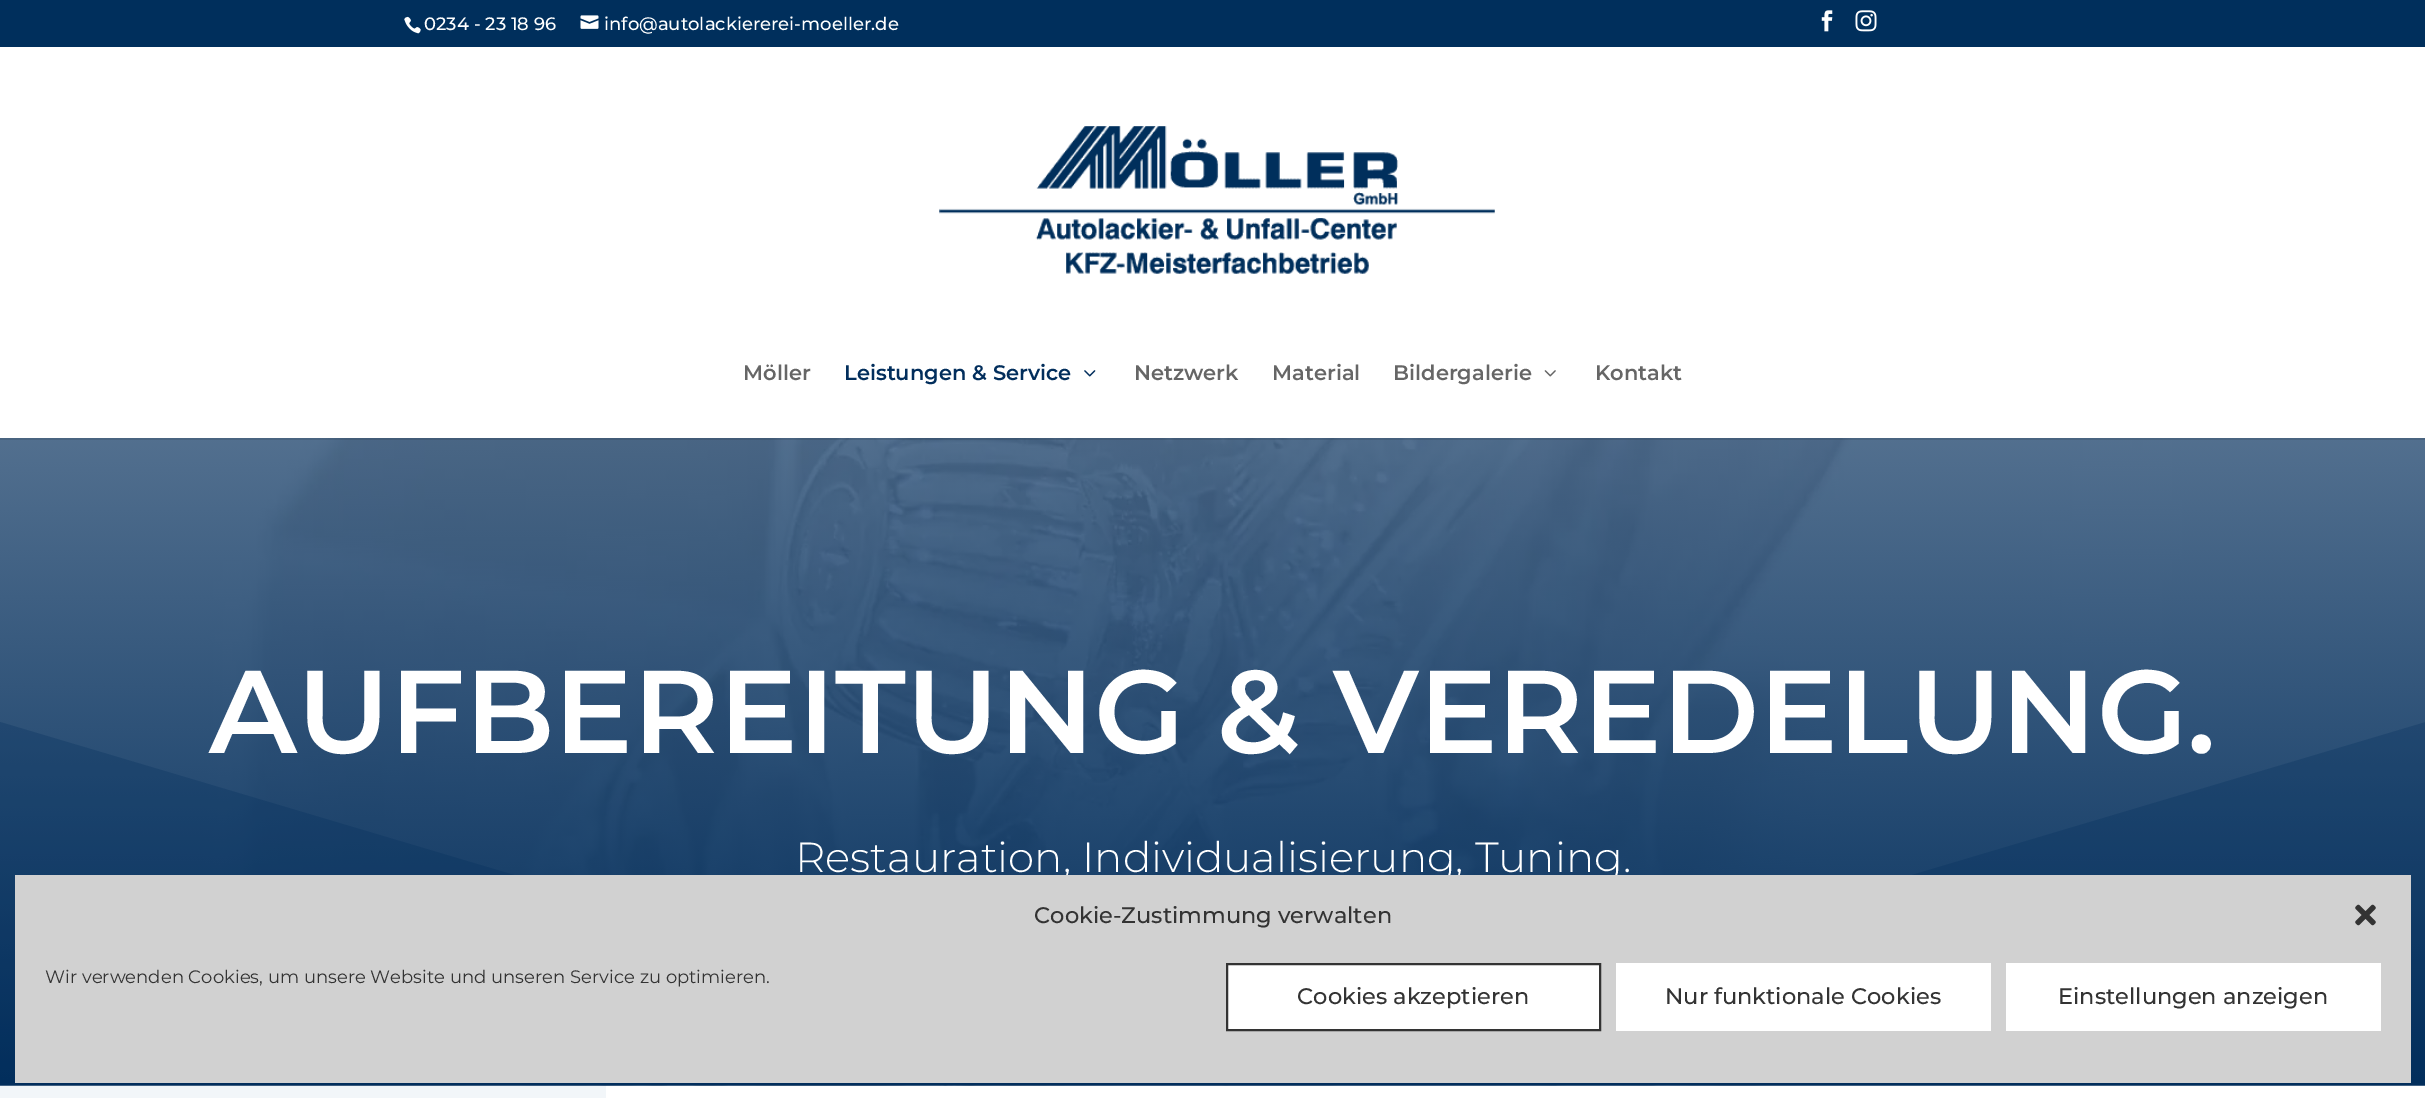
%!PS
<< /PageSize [2425 1098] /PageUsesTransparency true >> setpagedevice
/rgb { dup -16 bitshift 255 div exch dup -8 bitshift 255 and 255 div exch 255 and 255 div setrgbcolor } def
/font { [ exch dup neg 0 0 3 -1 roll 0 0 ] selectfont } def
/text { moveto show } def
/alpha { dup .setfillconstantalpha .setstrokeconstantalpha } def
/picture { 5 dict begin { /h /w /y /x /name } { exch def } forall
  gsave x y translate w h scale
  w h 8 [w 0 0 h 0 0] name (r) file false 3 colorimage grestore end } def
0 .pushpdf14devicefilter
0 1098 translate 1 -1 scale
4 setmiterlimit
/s1 { /Montserrat-Medium 18 font 16#FFFFFF rgb } def
/s2 { /Montserrat-SemiBold 21 font 16#666666 rgb } def
/s3 { /Montserrat-SemiBold 21 font 16#022E5C rgb } def
/s4 { /Montserrat-SemiBold 117.6 font 16#FFFFFF rgb } def
/s5 { /Montserrat-Light 42 font 16#FFFFFF rgb } def
/s6 { /Montserrat-Medium 22.5 font 16#333333 rgb } def
/s7 { /Montserrat-Regular 18 font 16#333333 rgb } def
16#FFFFFF rgb
0 0 2425 1098 rectfill
16#002F5C rgb
0 0 2425 47 rectfill
(pic1.raw) 404 16 17 18 picture
s1
(0234 - 23 18 96) 424 30 text
(pic2.raw) 580 15 19 14 picture
(info@autolackiererei-moeller.de) 604 30 text
(pic3.raw) 1821 10 12 22 picture
(pic4.raw) 1855 10 22 22 picture
(pic8.raw) 0 438 2425 648 picture
0.1 alpha
16#000000 rgb
0 438 moveto 0 440 lineto 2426 440 lineto 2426 48 lineto 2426 438 lineto closepath fill
1 alpha
(pic5.raw) 939 126 556 148 picture
s2
(Möller) 743 380 text
s3
(Leistungen & Service) 844 380 text
(pic6.raw) 1084 370 12 7 picture
s2
(Netzwerk) 1134 380 text
(Material) 1272 380 text
(Bildergalerie) 1393 380 text
(pic7.raw) 1544 370 12 7 picture
(Kontakt) 1595 380 text
0.3 alpha
16#022E5C rgb
1213 1083 moveto 0 722 lineto 0 1085 lineto 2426 1085 lineto 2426 722 lineto closepath fill
1 alpha
s4
(AUFBEREITUNG & VEREDELUNG.) 209 753 text
s5
(Restauration, Individualisierung, Tuning.) 795 872 text
16#F2F6F9 rgb
0 1086 606 12 rectfill
16#D1D1D1 rgb
15 875 2396 208 rectfill
s6
(Cookie-Zustimmung verwalten) 1034 923 text
(pic9.raw) 2355 904 21 22 picture
s7
(Wir verwenden Cookies, um unsere Website und unseren Service zu optimieren.) 45 983 text
16#FFFFFF rgb
1227 964 moveto 1600 964 lineto 1600 1030 lineto 1227 1030 lineto closepath gsave fill grestore
16#333333 rgb
2 setlinewidth
stroke
s6
(Cookies akzeptieren) 1297 1004 text
16#FFFFFF rgb
1616 963 375 68 rectfill
s6
(Nur funktionale Cookies) 1665 1004 text
16#FFFFFF rgb
2006 963 375 68 rectfill
s6
(Einstellungen anzeigen) 2058 1004 text
.poppdf14devicefilter showpage
